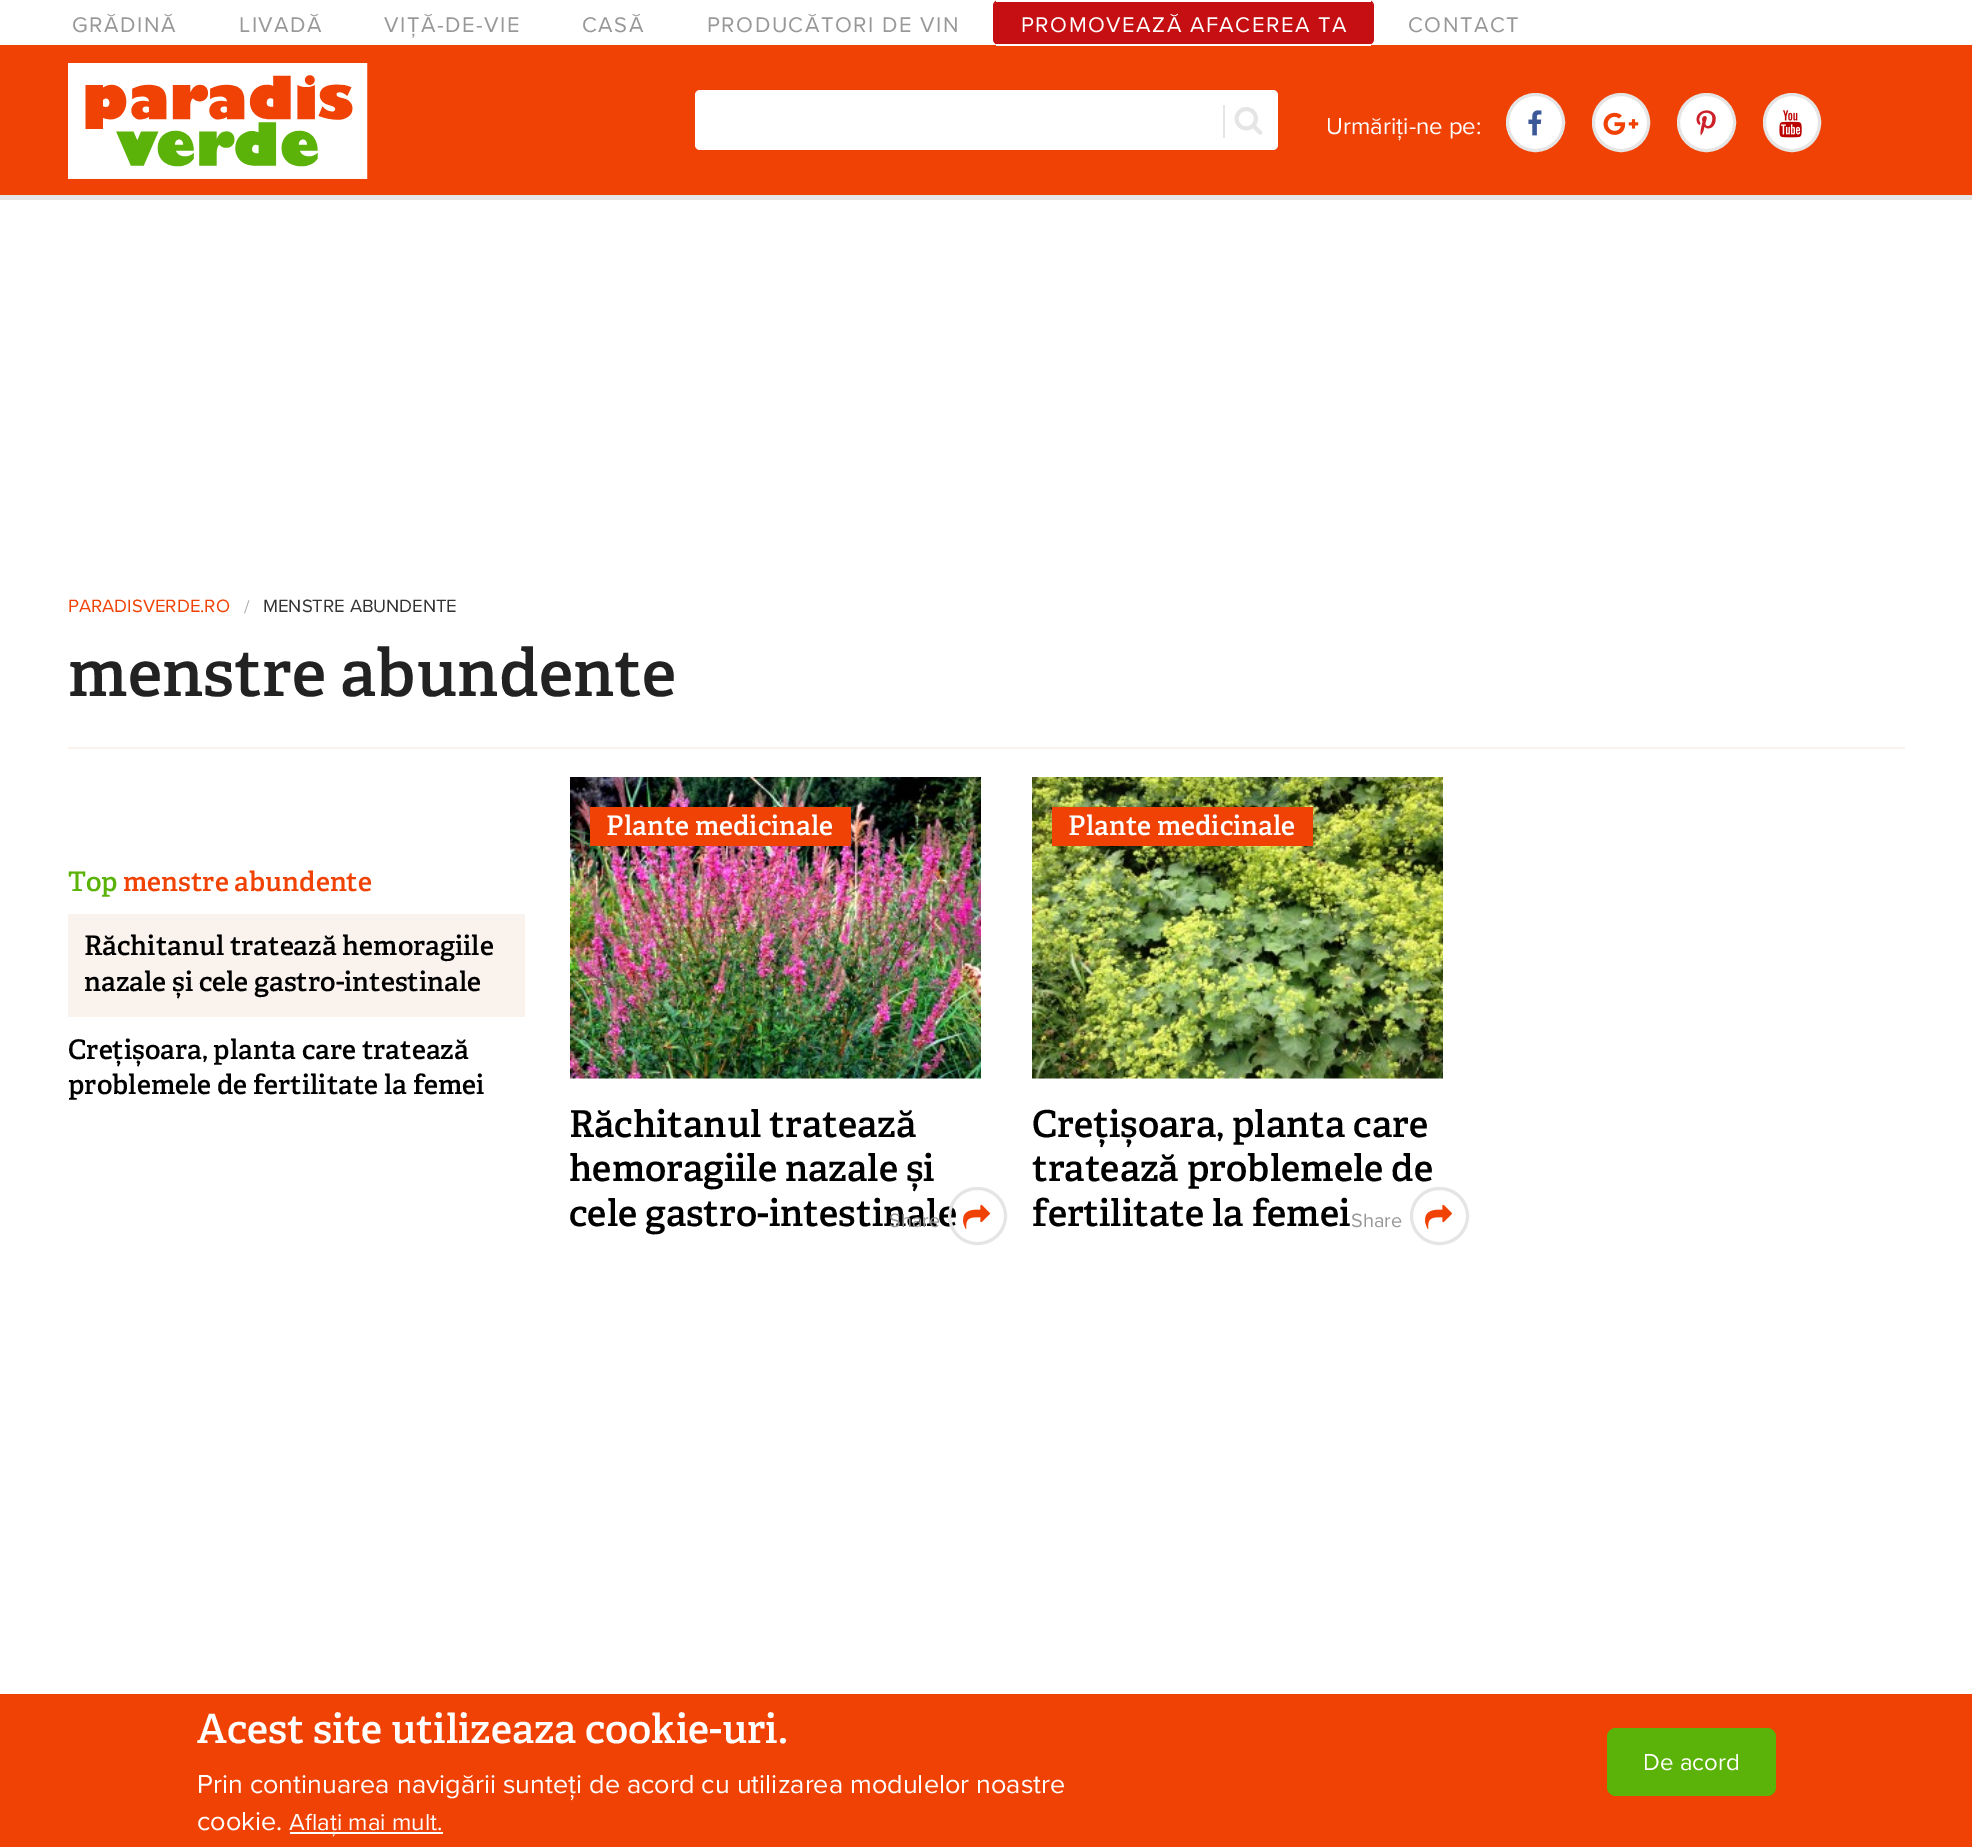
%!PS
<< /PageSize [1972 1847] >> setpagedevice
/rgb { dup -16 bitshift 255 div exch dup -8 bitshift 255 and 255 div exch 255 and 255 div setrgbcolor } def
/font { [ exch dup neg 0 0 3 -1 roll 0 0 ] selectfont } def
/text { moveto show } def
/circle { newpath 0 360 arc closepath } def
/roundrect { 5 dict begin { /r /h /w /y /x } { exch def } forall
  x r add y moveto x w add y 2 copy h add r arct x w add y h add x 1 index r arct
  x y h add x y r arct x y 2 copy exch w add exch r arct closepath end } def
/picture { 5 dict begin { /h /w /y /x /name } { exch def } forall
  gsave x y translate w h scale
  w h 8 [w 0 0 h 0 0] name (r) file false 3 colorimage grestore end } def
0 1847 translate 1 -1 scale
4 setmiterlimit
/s1 { /ProximaNova-Regular 24 font 16#FFFFFF rgb } def
/s2 { /ProximaNova-Regular 18.5 font 16#F04205 rgb } def
/s3 { /ProximaNova-Regular 18.5 font 16#AAAAAA rgb } def
/s4 { /ProximaNova-Regular 18.5 font 16#333333 rgb } def
/s5 { /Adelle-SemiBold 66 font 16#222222 rgb } def
/s6 { /Adelle-SemiBold 27 font 16#5BB208 rgb } def
/s7 { /Adelle-SemiBold 27 font 16#F04205 rgb } def
/s8 { /Adelle-SemiBold 27 font 16#000000 rgb } def
/s9 { /Adelle-SemiBold 27 font 16#FFFFFF rgb } def
/s10 { /Adelle-SemiBold 37.1 font 16#000000 rgb } def
/s11 { /ProximaNova-Regular 20 font 16#989898 rgb } def
/s12 { /Adelle-SemiBold 40.5 font 16#FFFFFF rgb } def
/s13 { /ProximaNova-Regular 27 font 16#FFFFFF rgb } def
16#FFFFFF rgb
0 0 1972 1847 rectfill
16#E6E6E6 rgb
0 195 moveto 0 200 lineto 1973 200 lineto 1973 5 lineto 1972 5 lineto 1972 195 lineto closepath fill
16#F04205 rgb
0 45 1972 150 rectfill
/ProximaNova-Regular 22 font
16#989898 rgb
72 32 moveto 1.5 0 (GRĂDINĂ) ashow
239 32 moveto 1.5 0 (LIVADĂ) ashow
384 32 moveto 1.5 0 (VIȚĂ-DE-VIE) ashow
582 32 moveto 1.5 0 (CASĂ) ashow
707 32 moveto 1.5 0 (PRODUCĂTORI DE VIN) ashow
16#C60F13 rgb
993 0 381 45 6 roundrect fill
16#FFFFFF rgb
996 0 375 2 rectfill
996 44 375 2 rectfill
1021 32 moveto 1.5 0 (PROMOVEAZĂ AFACEREA TA) ashow
16#989898 rgb
1408 32 moveto 1.5 0 (CONTACT) ashow
(pic1.raw) 68 63 300 116 picture
16#FFFFFF rgb
695 90 583 60 5 roundrect fill
16#E5E5E5 rgb
1223 105 2 33 rectfill
(pic2.raw) 1234 107 29 28 picture
s1
(Urmăriți-ne pe:) 1326 134 text
1535.5 122.5 28 circle gsave fill grestore
16#E5E5E5 rgb
3 setlinewidth
stroke
(pic3.raw) 1528 110 14 26 picture
16#FFFFFF rgb
1593.5 94.5 55 56 27.5 roundrect gsave fill grestore
16#E5E5E5 rgb
stroke
(pic4.raw) 1603 112 36 23 picture
16#FFFFFF rgb
1706.5 122.5 28 circle gsave fill grestore
16#E5E5E5 rgb
stroke
(pic5.raw) 1696 110 20 26 picture
16#FFFFFF rgb
1764.5 94.5 55 56 27.5 roundrect gsave fill grestore
16#E5E5E5 rgb
stroke
(pic6.raw) 1779 110 23 28 picture
s2
(PARADISVERDE.RO) 68 612 text
s3
(/) 244 613 text
s4
(MENSTRE ABUNDENTE) 263 612 text
s5
(menstre abundente) 68 696 text
16#F9F2ED rgb
68 747 1837 2 rectfill
s6
(Top) 68 891 text
s7
(menstre abundente) 123 891 text
16#F9F2ED rgb
68 914 457 103 rectfill
s8
(Răchitanul tratează hemoragiile) 84 955 text
(nazale și cele gastro-intestinale) 84 991 text
(Crețișoara, planta care tratează) 68 1059 text
(problemele de fertilitate la femei) 68 1094 text
(pic7.raw) 570 777 411 302 picture
16#F04205 rgb
590 807 261 39 rectfill
s9
(Plante medicinale) 606 835 text
s10
(Răchitanul tratează) 569 1137 text
(hemoragiile nazale și) 569 1181 text
(cele gastro-intestinale) 569 1226 text
s11
(Share) 889 1227 text
16#E5E5E5 rgb
949.5 1188.5 56 55 27.5 roundrect stroke
(pic8.raw) 963 1204 27 25 picture
(pic9.raw) 1032 777 411 302 picture
16#F04205 rgb
1052 807 261 39 rectfill
s9
(Plante medicinale) 1068 835 text
s10
(Crețișoara, planta care) 1032 1137 text
(tratează problemele de) 1032 1181 text
(fertilitate la femei) 1032 1226 text
s11
(Share) 1351 1227 text
16#E5E5E5 rgb
1411.5 1188.5 56 55 27.5 roundrect stroke
(pic8.raw) 1425 1204 27 25 picture
16#F04205 rgb
0 1694 1972 153 rectfill
s12
(Acest site utilizeaza cookie-uri.) 197 1743 text
s13
(Prin continuarea navigării sunteți de acord cu utilizarea modulelor noastre) 197 1793 text
(cookie.) 197 1830 text
290 1832 153 2 rectfill
s1
(Aflați mai mult.) 289 1830 text
16#5BB208 rgb
1607 1728 169 68 9 roundrect fill
s1
(De acord) 1643 1770 text
showpage
